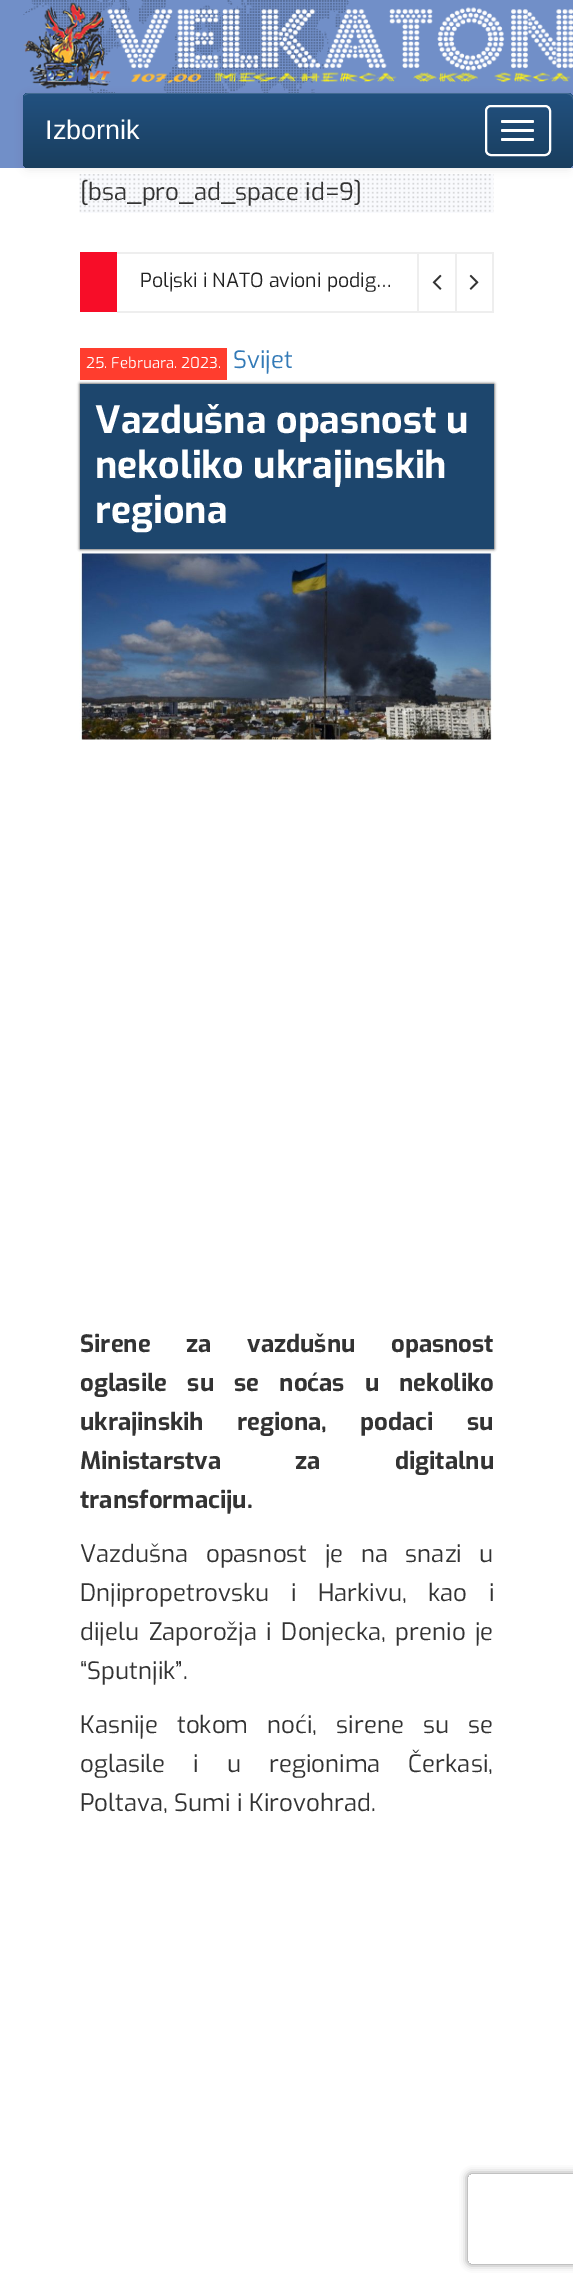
%!PS
<< /PageSize [573 2284] /PageUsesTransparency true >> setpagedevice
/rgb { dup -16 bitshift 255 div exch dup -8 bitshift 255 and 255 div exch 255 and 255 div setrgbcolor } def
/font { [ exch dup neg 0 0 3 -1 roll 0 0 ] selectfont } def
/text { moveto show } def
/alpha { dup .setfillconstantalpha .setstrokeconstantalpha } def
/roundrect { 5 dict begin { /r /h /w /y /x } { exch def } forall
  x r add y moveto x w add y 2 copy h add r arct x w add y h add x 1 index r arct
  x y h add x y r arct x y 2 copy exch w add exch r arct closepath end } def
/shadow { 12 dict begin { /a /b /q /h /w /y /x } { exch def } forall gsave /was 0 def
  9 -2 -9 { dup b mul 4 div /e exch def 1 sub .425 mul 2.718 exch exp 1 add a .99 .min exch div /now exch def
    1 1 now sub 1 was sub div sub alpha /was now def
    w h .min e 2 mul add 0 gt { x e sub y e sub w e 2 mul add h e 2 mul add
      q e add b .6 mul add w h .min 2 div e add .min 0 .max roundrect fill } if } for grestore end } def
/picture { 5 dict begin { /h /w /y /x /name } { exch def } forall
  gsave x y translate w h scale
  w h 8 [w 0 0 h 0 0] name (r) file false 3 colorimage grestore end } def
0 .pushpdf14devicefilter
0 2284 translate 1 -1 scale
4 setmiterlimit
/s1 { /LiberationSans-Regular 27 font 16#FFFFFF rgb } def
/s2 { /Exo-Regular 24 font 16#333333 rgb } def
/s3 { /Exo-Regular 19.5 font 16#212121 rgb } def
/s4 { /Exo-Regular 15 font 16#FFFFFF rgb } def
/s5 { /Exo-Regular 24 font 16#337AB7 rgb } def
/s6 { /Exo-Bold 37.5 font 16#FFFFFF rgb } def
/s7 { /Exo-Bold 24 font 16#333333 rgb } def
16#FFFFFF rgb
0 0 573 2284 rectfill
16#718FC8 rgb
0 0 573 168 rectfill
(pic1.raw) 23 0 550 93 picture
16#000000 rgb
23 95 550 75 6 4 0.07 shadow
gsave 23 93 550 75 6 roundrect clip newpath
<< /ShadingType 2 /ColorSpace /DeviceRGB /Coords [298 93 298 168] /Extend [true true] /Function << /FunctionType 2 /Domain [0 1] /C0 [0.133 0.318 0.502] /C1 [0.098 0.243 0.369] /N 1 >> >> shfill grestore
0.15 alpha
16#FFFFFF rgb
28 94 moveto 567 94 lineto 570 94 573 97 573 100 curveto 573 99 lineto 573 96 570 93 567 93 curveto 29 93 lineto 27 93 25 94 24 96 curveto 25 95 27 94 28 94 curveto closepath fill
1 alpha
s1
(Izbornik) 45 139 text
2 setlinewidth
486 106 64 49 5 roundrect stroke
501 120 33 3 1.5 roundrect fill
501 129 33 3 1.5 roundrect fill
501 138 33 3 1.5 roundrect fill
(pic2.raw) 79 174 415 39 picture
s2
([bsa_pro_ad_space id=9]) 80 200 text
16#F70D28 rgb
80 252 37 60 rectfill
16#EEEEEE rgb
117 252 377 2 rectfill
492 252 2 60 rectfill
117 311 377 2 rectfill
s3
(Poljski i NATO avioni podig…) 140 287 text
16#EEEEEE rgb
417 254 2 57 rectfill
(pic3.raw) 432 274 10 16 picture
455 254 2 57 rectfill
(pic4.raw) 469 274 10 16 picture
16#222222 rgb
80 384 414 165 0 1.5 1 shadow
16#FF3D2E rgb
80 348 147 32 rectfill
s4
(25. Februara. 2023.) 86 368 text
s5
(Svijet) 233 368 text
16#1D466D rgb
80 384 414 165 rectfill
s6
(Vazdušna opasnost u) 95 433 text
(nekoliko ukrajinskih) 95 478 text
(regiona) 95 523 text
(pic5.raw) 79 553 414 187 picture
/Exo-Bold 24 font
16#333333 rgb
80 1352 moveto 29.5 0 32 (Sirene za vazdušnu opasnost) widthshow
80 1391 moveto 14 0 32 (oglasile su se noćas u nekoliko) widthshow
80 1430 moveto 27 0 32 (ukrajinskih regiona, podaci su) widthshow
80 1469 moveto 68 0 32 (Ministarstva za digitalnu) widthshow
(transformaciju.) 80 1508 text
/Exo-Regular 24 font
80 1562 moveto 11 0 32 (Vazdušna opasnost je na snazi u) widthshow
80 1601 moveto 15 0 32 (Dnjipropetrovsku i Harkivu, kao i) widthshow
80 1640 moveto 3 0 32 (dijelu Zaporožja i Donjecka, prenio je) widthshow
(“Sputnjik”.) 80 1679 text
80 1733 moveto 12.5 0 32 (Kasnije tokom noći, sirene su se) widthshow
80 1772 moveto 21.5 0 32 (oglasile i u regionima Čerkasi,) widthshow
(Poltava, Sumi i Kirovohrad.) 80 1811 text
gsave
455 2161 moveto 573 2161 lineto 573 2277 lineto 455 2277 lineto closepath 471 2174 moveto 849 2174 lineto 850.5 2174 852 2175.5 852 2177 curveto 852 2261 lineto 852 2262.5 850.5 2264 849 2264 curveto 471 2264 lineto 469.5 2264 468 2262.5 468 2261 curveto 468 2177 lineto 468 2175.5 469.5 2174 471 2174 curveto closepath eoclip newpath
16#808080 rgb
468 2174 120 90 3 4 1 shadow
grestore
.poppdf14devicefilter showpage
